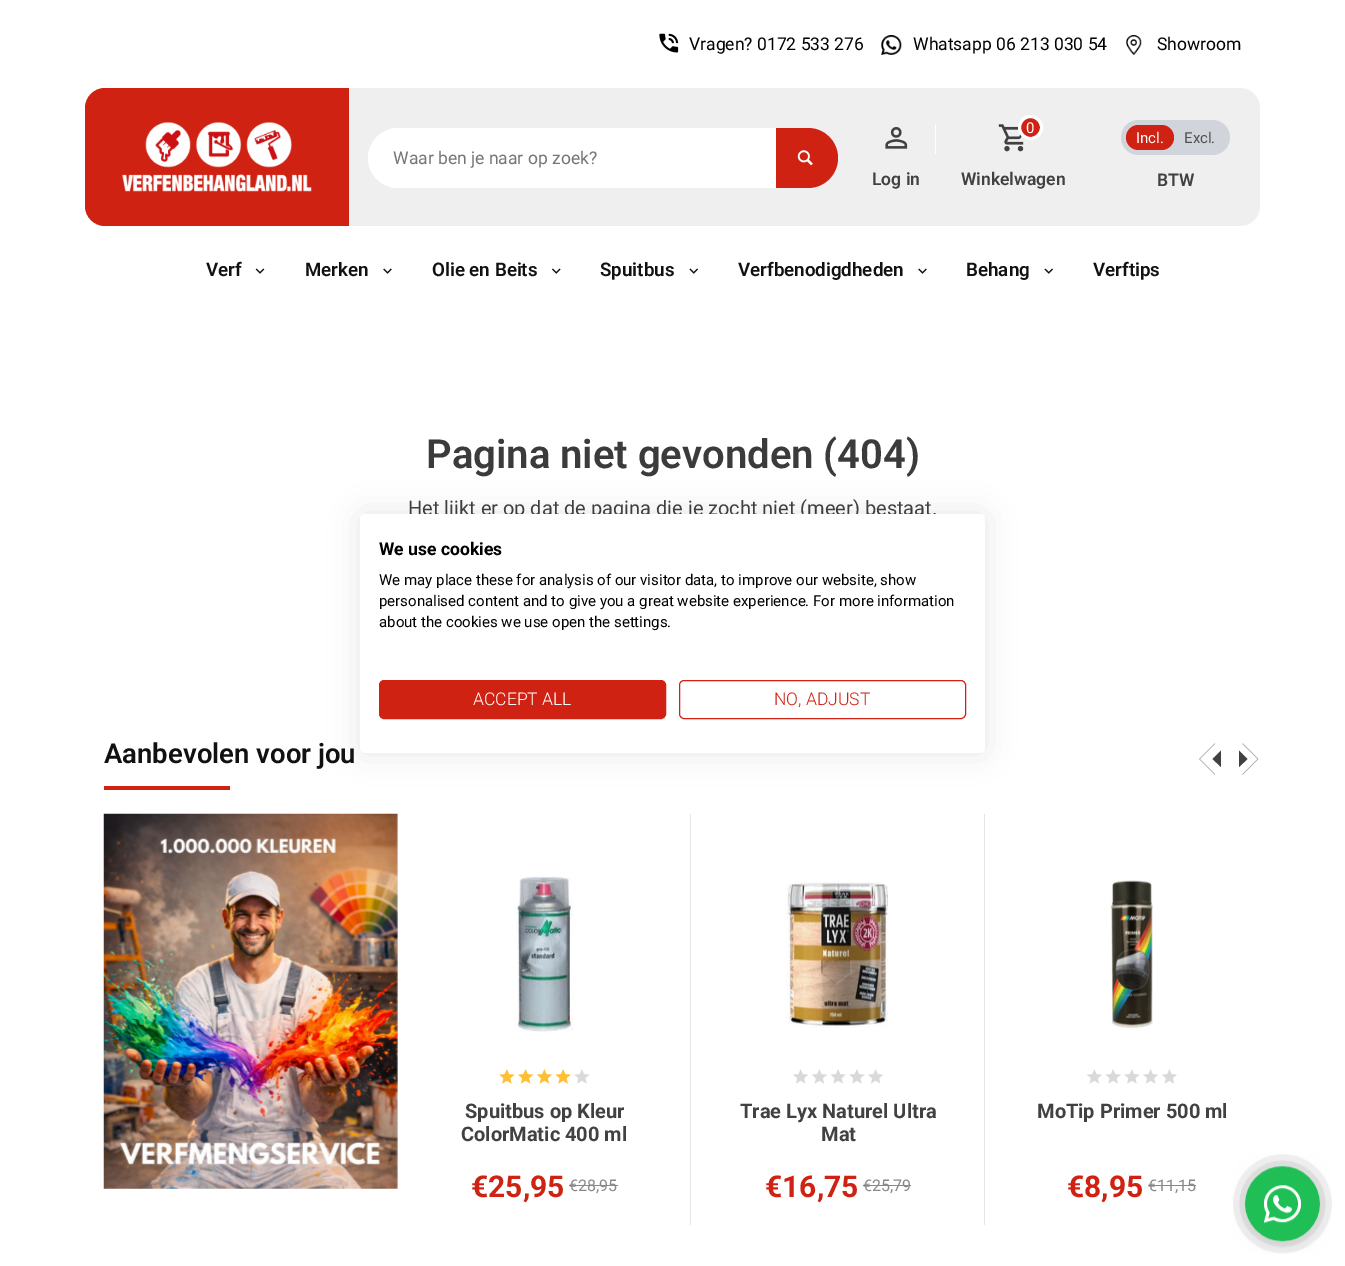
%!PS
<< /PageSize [1345 1266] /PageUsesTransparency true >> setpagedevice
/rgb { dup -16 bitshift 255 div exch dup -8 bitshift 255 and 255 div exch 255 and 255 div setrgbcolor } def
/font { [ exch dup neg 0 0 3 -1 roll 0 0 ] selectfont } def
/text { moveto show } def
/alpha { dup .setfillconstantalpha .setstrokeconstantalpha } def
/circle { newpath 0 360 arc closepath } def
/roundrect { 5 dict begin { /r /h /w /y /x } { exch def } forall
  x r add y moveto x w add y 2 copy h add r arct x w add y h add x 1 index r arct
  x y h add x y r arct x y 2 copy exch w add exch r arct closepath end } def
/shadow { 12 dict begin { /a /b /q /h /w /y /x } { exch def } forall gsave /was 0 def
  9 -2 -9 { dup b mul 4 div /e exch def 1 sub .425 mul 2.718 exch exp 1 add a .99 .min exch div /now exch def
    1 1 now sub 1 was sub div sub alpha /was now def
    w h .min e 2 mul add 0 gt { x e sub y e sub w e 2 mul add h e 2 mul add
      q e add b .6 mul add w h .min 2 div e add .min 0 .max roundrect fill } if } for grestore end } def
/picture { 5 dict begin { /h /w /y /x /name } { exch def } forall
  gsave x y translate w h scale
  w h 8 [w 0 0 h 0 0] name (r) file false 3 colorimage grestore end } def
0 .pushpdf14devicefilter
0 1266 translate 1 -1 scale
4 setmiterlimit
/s1 { /Roboto-Regular 17.5 font 16#000000 rgb } def
/s2 { /Roboto-Regular 17.5 font 16#757575 rgb } def
/s3 { /Roboto-Regular 15 font 16#FFFFFF rgb } def
/s4 { /Roboto-SemiBold 17.5 font 16#414141 rgb } def
/s5 { /Roboto-Regular 15 font 16#505050 rgb } def
/s6 { /Roboto-SemiBold 18.75 font 16#111111 rgb } def
/s7 { /Roboto-SemiBold 40 font 16#3B3B3B rgb } def
/s8 { /Roboto-Regular 20 font 16#414141 rgb } def
/s9 { /Roboto-SemiBold 27.5 font 16#111111 rgb } def
/s10 { /Roboto-Bold 20 font 16#414141 rgb } def
/s11 { /Roboto-Bold 30 font 16#D02213 rgb } def
/s12 { /Roboto-Regular 16 font 16#888888 rgb } def
/s13 { /Roboto-Bold 17.5 font 16#000000 rgb } def
/s14 { /Roboto-Regular 15 font 16#000000 rgb } def
/s15 { /Roboto-Light 17.5 font 16#FFFFFF rgb } def
/s16 { /Roboto-Light 17.5 font 16#D02213 rgb } def
16#FFFFFF rgb
0 0 1345 1266 rectfill
(pic1.raw) 659 33 20 20 picture
s1
(Vragen? 0172 533 276) 689 50 text
(pic2.raw) 881 35 21 20 picture
(Whatsapp 06 213 030 54) 913 50 text
(pic3.raw) 1126 35 16 20 picture
(Showroom) 1157 50 text
16#EFEFEF rgb
85 88 1175 138 20 roundrect fill
16#D02213 rgb
105 88 moveto 349 88 lineto 349 226 lineto 105 226 lineto 94 226 85 217 85 206 curveto 85 108 lineto 85 97 94 88 105 88 curveto closepath fill
(pic4.raw) 122 122 190 70 picture
16#FFFFFF rgb
398 128 moveto 814 128 lineto 814 188 lineto 398 188 lineto 381.5 188 368 174.5 368 158 curveto 368 141.5 381.5 128 398 128 curveto closepath fill
s2
(Waar ben je naar op zoek?) 393 164 text
16#D02213 rgb
776 128 moveto 808 128 lineto 824.5 128 838 141.5 838 158 curveto 838 174.5 824.5 188 808 188 curveto 776 188 lineto closepath fill
(pic5.raw) 797 150 16 16 picture
(pic6.raw) 998 124 26 28 picture
1030.5 127.5 11 circle gsave fill grestore
16#FFFFFF rgb
3 setlinewidth
stroke
s3
(0) 1026 133 text
s4
(Winkelwagen) 961 185 text
16#D1D5DB rgb
1121 120 109 35 17.5 roundrect fill
16#D02213 rgb
1126 125 48 25 12.5 roundrect fill
s3
(Incl.) 1136 143 text
s5
(Excl.) 1184 143 text
s4
(BTW) 1157 186 text
16#FFFFFF rgb
935 125 1 29 rectfill
(pic7.raw) 885 127 23 22 picture
s4
(Log in) 872 185 text
s6
(Verf) 206 276 text
(pic8.raw) 255 268 10 6 picture
(Merken) 305 276 text
(pic9.raw) 383 268 9 6 picture
(Olie en Beits) 432 276 text
(pic10.raw) 552 268 9 6 picture
(Spuitbus) 600 276 text
(pic11.raw) 689 268 9 6 picture
(Verfbenodigdheden) 738 276 text
(pic9.raw) 918 268 9 6 picture
(Behang) 966 276 text
(pic11.raw) 1044 268 9 6 picture
(Verftips) 1093 276 text
s7
(Pagina niet gevonden \(404\)) 426 468 text
s8
(Het lijkt er op dat de pagina die je zocht niet \(meer\) bestaat.) 408 515 text
s9
(Aanbevolen voor jou) 104 763 text
16#D02213 rgb
104 786 126 4 rectfill
16#414141 rgb
1221 750.5 moveto 1212.5 759 lineto 1221 767 lineto closepath fill
16#AAAAAA rgb
1199 759 moveto 1215 743 lineto 1215 744 lineto 1200 759 lineto closepath 1215 775 moveto 1199 759 lineto 1200 759 lineto 1215 774 lineto closepath fill
16#414141 rgb
1239 767 moveto 1247.5 759 lineto 1239 750.5 lineto closepath fill
16#AAAAAA rgb
1242.5 743 moveto 1258.5 759 lineto 1257.5 759 lineto 1242.5 744 lineto closepath 1258.5 759 moveto 1242.5 775 lineto 1242.5 774 lineto 1257.5 759 lineto closepath fill
(pic12.raw) 103 813 295 376 picture
(pic13.raw) 515 876 59 156 picture
(pic14.raw) 499 1069 16 15 picture
(pic15.raw) 518 1069 16 15 picture
(pic16.raw) 536 1069 16 15 picture
(pic17.raw) 555 1069 16 15 picture
(pic18.raw) 574 1069 16 15 picture
s10
(Spuitbus op Kleur) 465 1118 text
(ColorMatic 400 ml) 461 1141 text
s11
(€25,95) 471 1197 text
s12
(€28,95) 569 1191 text
569 1185 49 1 rectfill
16#E5E5E5 rgb
690 814 1 411 rectfill
(pic19.raw) 785 881 104 147 picture
(pic20.raw) 793 1069 15 15 picture
(pic21.raw) 812 1069 15 15 picture
(pic22.raw) 830 1069 16 15 picture
(pic18.raw) 849 1069 16 15 picture
(pic20.raw) 868 1069 15 15 picture
s10
(Trae Lyx Naturel Ultra) 740 1118 text
(Mat) 821 1141 text
s11
(€16,75) 765 1197 text
s12
(€25,79) 863 1191 text
863 1185 48 1 rectfill
16#E5E5E5 rgb
984 814 1 411 rectfill
(pic23.raw) 1110 880 43 149 picture
(pic21.raw) 1087 1069 15 15 picture
(pic22.raw) 1105 1069 16 15 picture
(pic18.raw) 1124 1069 16 15 picture
(pic20.raw) 1143 1069 15 15 picture
(pic21.raw) 1162 1069 15 15 picture
s10
(MoTip Primer 500 ml) 1037 1118 text
s11
(€8,95) 1067 1197 text
s12
(€11,15) 1148 1191 text
1148 1185 48 1 rectfill
16#000000 rgb
360 514 625 239 5 15 0.1 shadow
16#FFFFFF rgb
360 514 625 239 5 roundrect fill
s13
(We use cookies) 379 555 text
s14
(We may place these for analysis of our visitor data, to improve our website, show) 379 585 text
(personalised content and to give you a great website experience. For more information) 379 606 text
(about the cookies we use open the settings.) 379 627 text
16#D02213 rgb
379.5 680.5 286 38 4.5 roundrect gsave fill grestore
1 setlinewidth
stroke
s15
(ACCEPT ALL) 473 705 text
16#D02213 rgb
679.5 680.5 286 38 4.5 roundrect stroke
(NO, ADJUST) 774 705 text
(pic24.raw) 1233 1154 99 100 picture
.poppdf14devicefilter showpage
